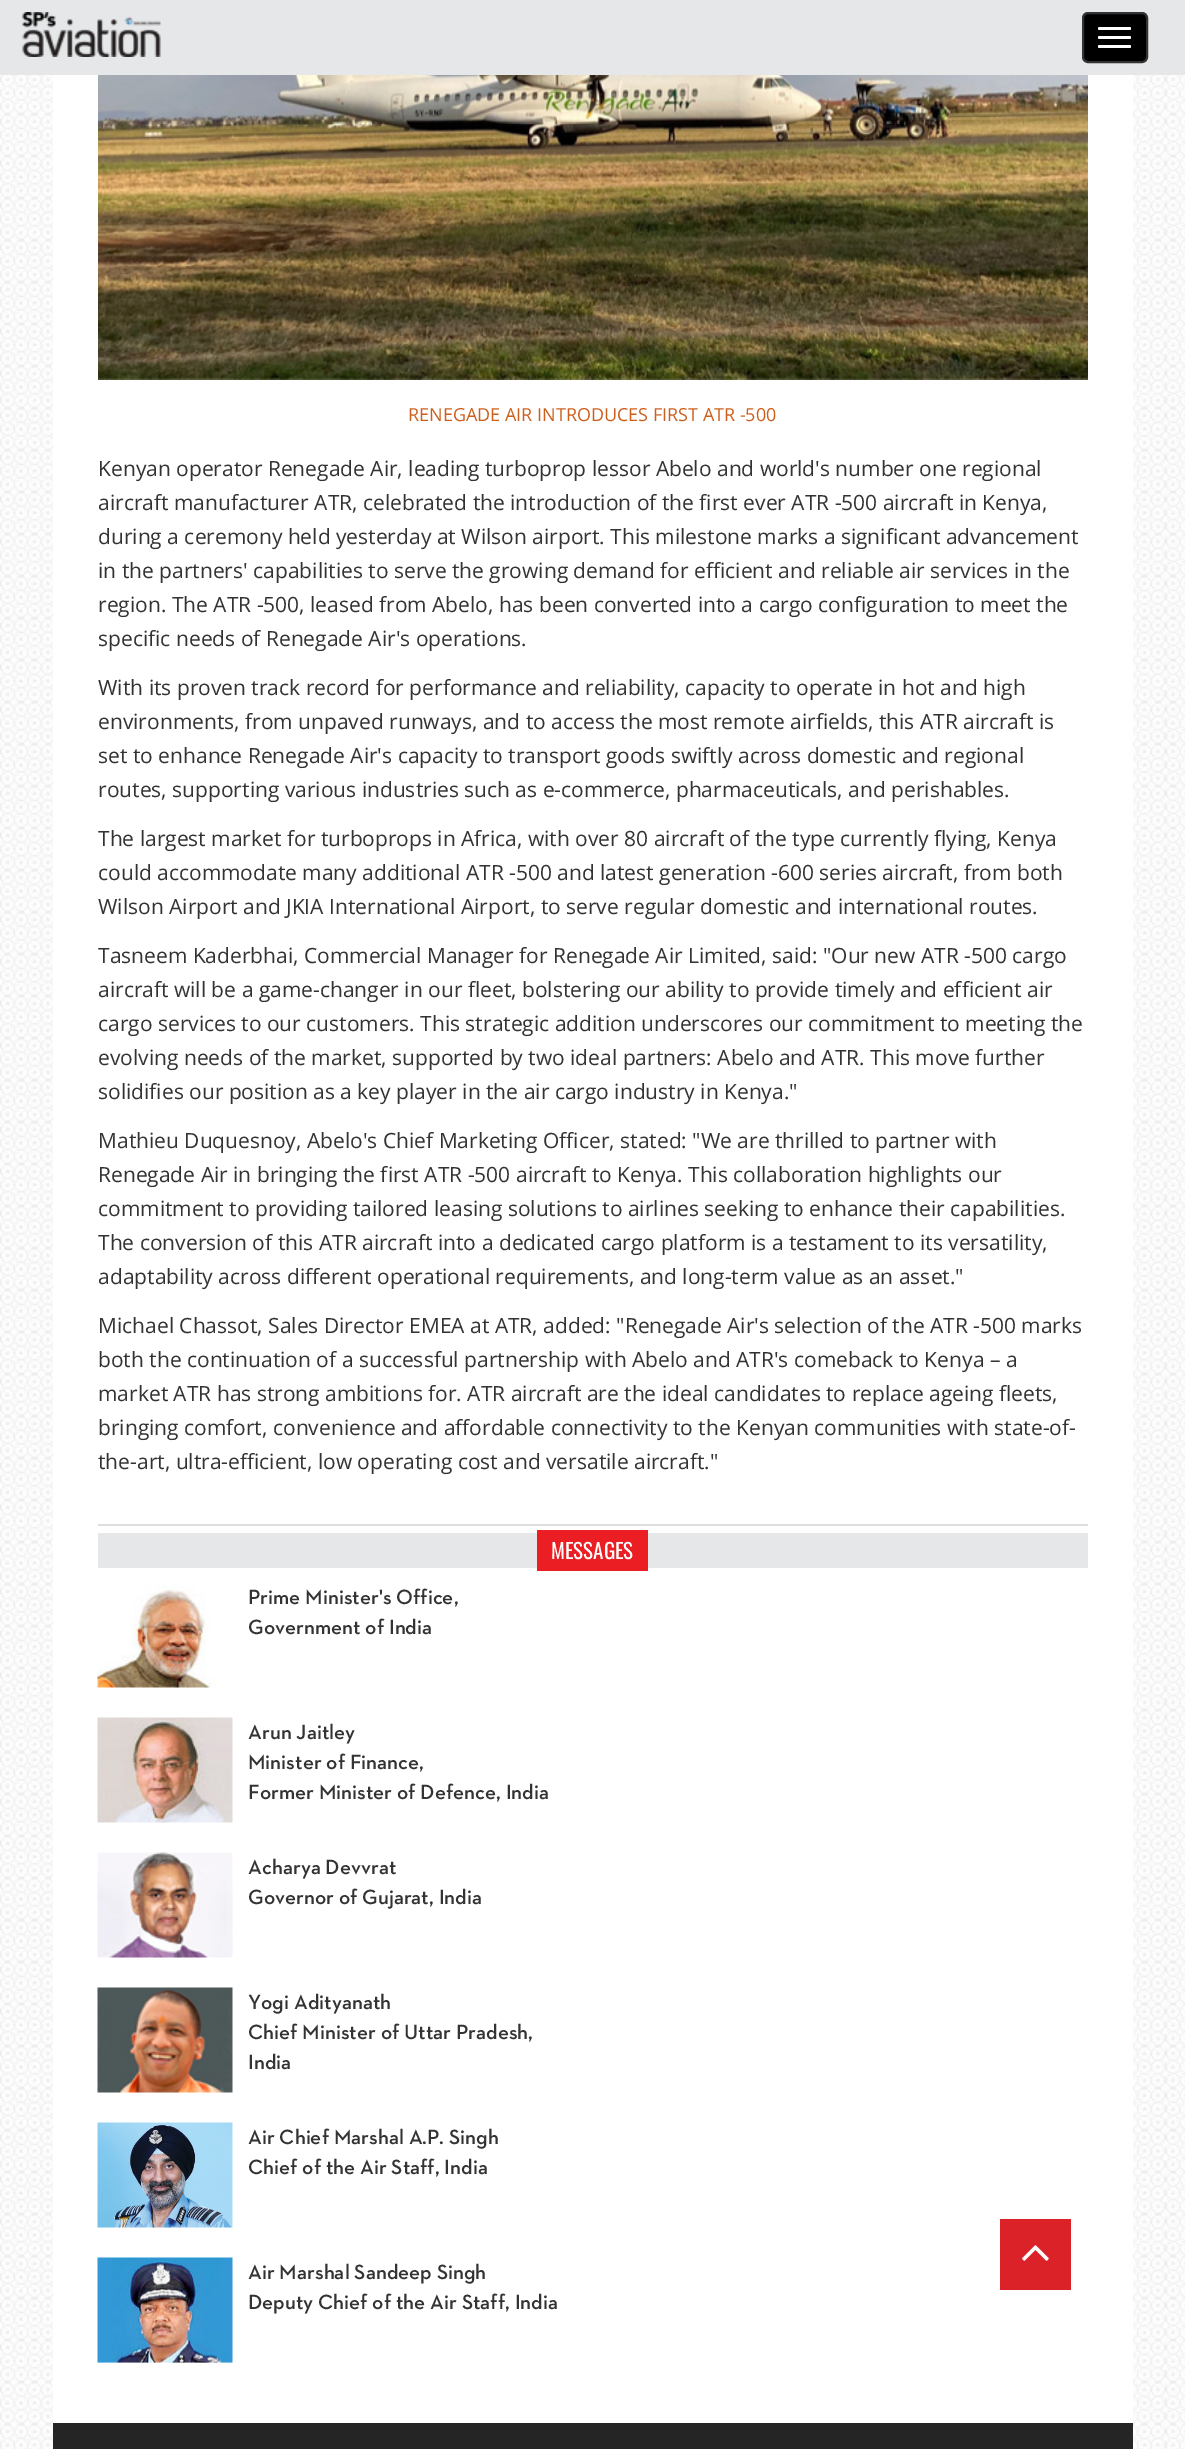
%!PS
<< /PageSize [1185 2449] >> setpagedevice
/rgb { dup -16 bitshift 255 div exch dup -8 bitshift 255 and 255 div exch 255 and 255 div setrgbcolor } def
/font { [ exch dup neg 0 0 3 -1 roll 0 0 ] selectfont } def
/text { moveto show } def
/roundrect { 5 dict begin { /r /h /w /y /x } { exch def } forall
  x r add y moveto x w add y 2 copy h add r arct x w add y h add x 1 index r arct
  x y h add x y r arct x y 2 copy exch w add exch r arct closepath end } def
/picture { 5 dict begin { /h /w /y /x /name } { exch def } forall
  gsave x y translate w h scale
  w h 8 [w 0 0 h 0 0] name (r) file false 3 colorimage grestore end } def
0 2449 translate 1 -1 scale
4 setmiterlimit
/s1 { /OpenSans-Regular 18 font 16#CD5F1C rgb } def
/s2 { /OpenSans-Regular 21 font 16#333333 rgb } def
/s3 { /Oswald-Regular 21 font 16#FFFFFF rgb } def
/s4 { /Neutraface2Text-SemiBold 21 font 16#333333 rgb } def
16#FFFFFF rgb
0 0 1185 2449 rectfill
(pic1.raw) 0 75 1185 2374 picture
16#E6E7E8 rgb
0 0 1185 75 rectfill
(pic2.raw) 22 12 139 45 picture
16#000000 rgb
1083 13 64 49 5 roundrect gsave fill grestore
16#333333 rgb
2 setlinewidth
stroke
16#FFFFFF rgb
1098 27 33 3 1.5 roundrect fill
1098 36 33 3 1.5 roundrect fill
1098 45 33 3 1.5 roundrect fill
53 75 1080 2348 rectfill
16#DDDDDD rgb
98 1524 990 2 rectfill
(pic3.raw) 98 75 990 305 picture
s1
(RENEGADE AIR INTRODUCES FIRST ATR -500) 408 421 text
s2
(Kenyan operator Renegade Air, leading turboprop lessor Abelo and world's number one regional) 98 476 text
(aircraft manufacturer ATR, celebrated the introduction of the first ever ATR -500 aircraft in Kenya,) 98 510 text
(during a ceremony held yesterday at Wilson airport. This milestone marks a significant advancement) 98 544 text
(in the partners' capabilities to serve the growing demand for efficient and reliable air services in the) 98 578 text
(region. The ATR -500, leased from Abelo, has been converted into a cargo configuration to meet the) 98 612 text
(specific needs of Renegade Air's operations.) 98 646 text
(With its proven track record for performance and reliability, capacity to operate in hot and high) 98 695 text
(environments, from unpaved runways, and to access the most remote airfields, this ATR aircraft is) 98 729 text
(set to enhance Renegade Air's capacity to transport goods swiftly across domestic and regional) 98 763 text
(routes, supporting various industries such as e-commerce, pharmaceuticals, and perishables.) 98 797 text
(The largest market for turboprops in Africa, with over 80 aircraft of the type currently flying, Kenya) 98 846 text
(could accommodate many additional ATR -500 and latest generation -600 series aircraft, from both) 98 880 text
(Wilson Airport and JKIA International Airport, to serve regular domestic and international routes.) 98 914 text
(Tasneem Kaderbhai, Commercial Manager for Renegade Air Limited, said: "Our new ATR -500 cargo) 98 963 text
(aircraft will be a game-changer in our fleet, bolstering our ability to provide timely and efficient air) 98 997 text
(cargo services to our customers. This strategic addition underscores our commitment to meeting the) 98 1031 text
(evolving needs of the market, supported by two ideal partners: Abelo and ATR. This move further) 98 1065 text
(solidifies our position as a key player in the air cargo industry in Kenya.") 98 1099 text
(Mathieu Duquesnoy, Abelo's Chief Marketing Officer, stated: "We are thrilled to partner with) 98 1148 text
(Renegade Air in bringing the first ATR -500 aircraft to Kenya. This collaboration highlights our) 98 1182 text
(commitment to providing tailored leasing solutions to airlines seeking to enhance their capabilities.) 98 1216 text
(The conversion of this ATR aircraft into a dedicated cargo platform is a testament to its versatility,) 98 1250 text
(adaptability across different operational requirements, and long-term value as an asset.") 98 1284 text
(Michael Chassot, Sales Director EMEA at ATR, added: "Renegade Air's selection of the ATR -500 marks) 98 1333 text
(both the continuation of a successful partnership with Abelo and ATR's comeback to Kenya – a) 98 1367 text
(market ATR has strong ambitions for. ATR aircraft are the ideal candidates to replace ageing fleets,) 98 1401 text
(bringing comfort, convenience and affordable connectivity to the Kenyan communities with state-of-) 98 1435 text
(the-art, ultra-efficient, low operating cost and versatile aircraft.") 98 1469 text
16#E6E7E8 rgb
98 1533 990 35 rectfill
16#EB1E23 rgb
537 1530 111 41 rectfill
s3
(MESSAGES) 551 1559 text
(pic4.raw) 97 1583 120 105 picture
s4
(Prime Minister's Office,) 248 1604 text
(Government of India) 248 1634 text
(pic5.raw) 97 1717 136 106 picture
(Arun Jaitley) 248 1739 text
(Minister of Finance,) 248 1769 text
(Former Minister of Defence, India) 248 1799 text
(pic6.raw) 97 1852 136 106 picture
(Acharya Devvrat) 248 1874 text
(Governor of Gujarat, India) 248 1904 text
(pic7.raw) 97 1987 136 106 picture
(Yogi Adityanath) 248 2009 text
(Chief Minister of Uttar Pradesh,) 248 2039 text
(India) 248 2069 text
(pic8.raw) 97 2122 136 106 picture
(Air Chief Marshal A.P. Singh) 248 2144 text
(Chief of the Air Staff, India) 248 2174 text
(pic9.raw) 97 2257 136 106 picture
(Air Marshal Sandeep Singh) 248 2279 text
(Deputy Chief of the Air Staff, India) 248 2309 text
16#252525 rgb
53 2423 1080 26 rectfill
16#DB2229 rgb
1000 2219 71 71 rectfill
(pic10.raw) 1022 2245 27 16 picture
showpage
